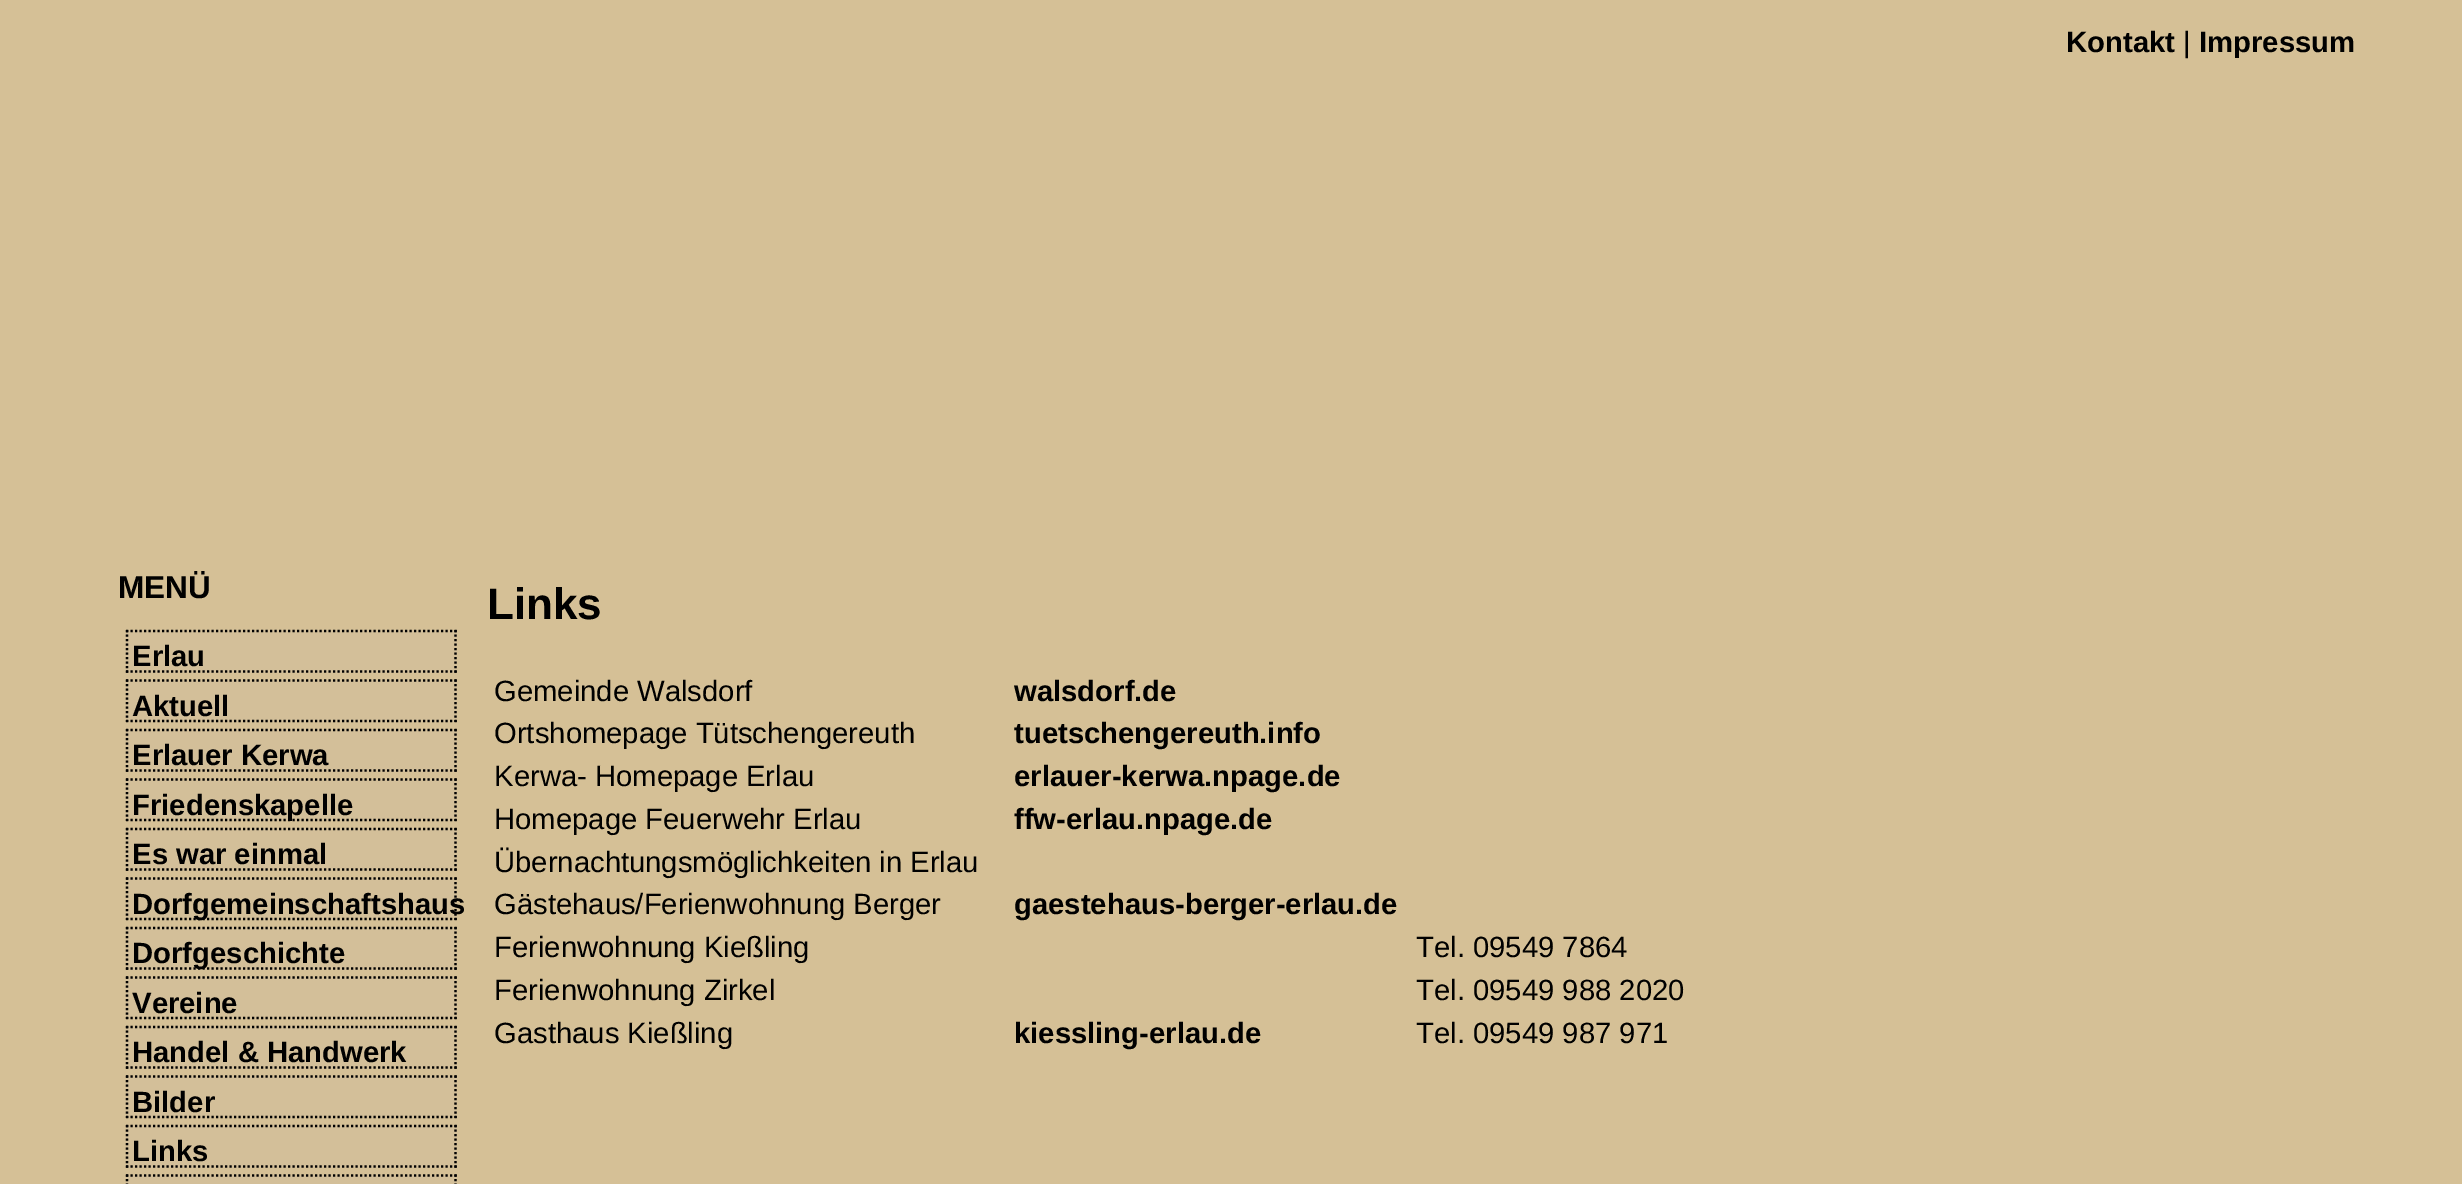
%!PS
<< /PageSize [2462 1184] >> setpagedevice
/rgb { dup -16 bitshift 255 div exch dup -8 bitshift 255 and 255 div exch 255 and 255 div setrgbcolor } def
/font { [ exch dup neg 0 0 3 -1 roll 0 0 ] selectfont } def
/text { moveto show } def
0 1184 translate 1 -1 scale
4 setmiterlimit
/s1 { /LiberationSans-Bold 29.25 font 16#000000 rgb } def
/s2 { /LiberationSans-Regular 29.25 font 16#000000 rgb } def
/s3 { /LiberationSans-Bold 31.5 font 16#000000 rgb } def
/s4 { /LiberationSans-Bold 44 font 16#000000 rgb } def
16#D5C096 rgb
0 0 2462 1184 rectfill
s1
(Kontakt) 2066 52 text
s2
(|) 2183 52 text
s1
(Impressum) 2199 52 text
s3
(MENÜ) 118 598 text
16#D3BF99 rgb
126 630 331 43 rectfill
16#000000 rgb
2.2 setlinewidth
[2.25 2.25] 0 setdash
126 631 moveto 457 631 lineto stroke
455.5 630 moveto 455.5 673 lineto stroke
126 671.5 moveto 457 671.5 lineto stroke
127 630 moveto 127 673 lineto stroke
s1
(Erlau) 132 666 text
16#D3BF99 rgb
126 680 331 42 rectfill
16#000000 rgb
126 680.5 moveto 457 680.5 lineto stroke
455.5 679.5 moveto 455.5 722 lineto stroke
126 721 moveto 457 721 lineto stroke
127 679.5 moveto 127 722 lineto stroke
(Aktuell) 132 716 text
16#D3BF99 rgb
126 729 331 43 rectfill
16#000000 rgb
126 730 moveto 457 730 lineto stroke
455.5 729 moveto 455.5 772 lineto stroke
126 770.5 moveto 457 770.5 lineto stroke
127 729 moveto 127 772 lineto stroke
(Erlauer Kerwa) 132 765 text
16#D3BF99 rgb
126 779 331 42 rectfill
16#000000 rgb
126 779.5 moveto 457 779.5 lineto stroke
455.5 778.5 moveto 455.5 821 lineto stroke
126 820 moveto 457 820 lineto stroke
127 778.5 moveto 127 821 lineto stroke
(Friedenskapelle) 132 815 text
16#D3BF99 rgb
126 828 331 43 rectfill
16#000000 rgb
126 829 moveto 457 829 lineto stroke
455.5 828 moveto 455.5 871 lineto stroke
126 869.5 moveto 457 869.5 lineto stroke
127 828 moveto 127 871 lineto stroke
(Es war einmal) 132 864 text
16#D3BF99 rgb
126 878 331 42 rectfill
16#000000 rgb
126 878.5 moveto 457 878.5 lineto stroke
455.5 877.5 moveto 455.5 920 lineto stroke
126 919 moveto 457 919 lineto stroke
127 877.5 moveto 127 920 lineto stroke
(Dorfgemeinschaftshaus) 132 914 text
16#D3BF99 rgb
126 927 331 43 rectfill
16#000000 rgb
126 928 moveto 457 928 lineto stroke
455.5 927 moveto 455.5 970 lineto stroke
126 968.5 moveto 457 968.5 lineto stroke
127 927 moveto 127 970 lineto stroke
(Dorfgeschichte) 132 963 text
16#D3BF99 rgb
126 977 331 42 rectfill
16#000000 rgb
126 977.5 moveto 457 977.5 lineto stroke
455.5 976.5 moveto 455.5 1019 lineto stroke
126 1018 moveto 457 1018 lineto stroke
127 976.5 moveto 127 1019 lineto stroke
(Vereine) 132 1013 text
16#D3BF99 rgb
126 1026 331 43 rectfill
16#000000 rgb
126 1027 moveto 457 1027 lineto stroke
455.5 1026 moveto 455.5 1069 lineto stroke
126 1067.5 moveto 457 1067.5 lineto stroke
127 1026 moveto 127 1069 lineto stroke
(Handel & Handwerk) 132 1062 text
16#D3BF99 rgb
126 1076 331 42 rectfill
16#000000 rgb
126 1076.5 moveto 457 1076.5 lineto stroke
455.5 1075.5 moveto 455.5 1118 lineto stroke
126 1117 moveto 457 1117 lineto stroke
127 1075.5 moveto 127 1118 lineto stroke
(Bilder) 132 1112 text
16#D3BF99 rgb
126 1125 331 43 rectfill
16#000000 rgb
126 1126 moveto 457 1126 lineto stroke
455.5 1125 moveto 455.5 1168 lineto stroke
126 1166.5 moveto 457 1166.5 lineto stroke
127 1125 moveto 127 1168 lineto stroke
(Links) 132 1161 text
16#D3BF99 rgb
126 1175 331 9 rectfill
16#000000 rgb
126 1175.5 moveto 457 1175.5 lineto stroke
455.5 1174.5 moveto 455.5 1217 lineto stroke
127 1174.5 moveto 127 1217 lineto stroke
s4
(Links) 487 619 text
s2
(Gemeinde Walsdorf) 494 701 text
s1
(walsdorf.de) 1014 701 text
s2
(Ortshomepage Tütschengereuth) 494 743 text
s1
(tuetschengereuth.info) 1014 743 text
s2
(Kerwa- Homepage Erlau) 494 786 text
s1
(erlauer-kerwa.npage.de) 1014 786 text
s2
(Homepage Feuerwehr Erlau) 494 829 text
s1
(ffw-erlau.npage.de) 1014 829 text
s2
(Übernachtungsmöglichkeiten in Erlau) 494 872 text
(Gästehaus/Ferienwohnung Berger) 494 914 text
s1
(gaestehaus-berger-erlau.de) 1014 914 text
s2
(Ferienwohnung Kießling) 494 957 text
(Tel. 09549 7864) 1416 957 text
(Ferienwohnung Zirkel) 494 1000 text
(Tel. 09549 988 2020) 1416 1000 text
(Gasthaus Kießling) 494 1043 text
s1
(kiessling-erlau.de) 1014 1043 text
s2
(Tel. 09549 987 971) 1416 1043 text
showpage
